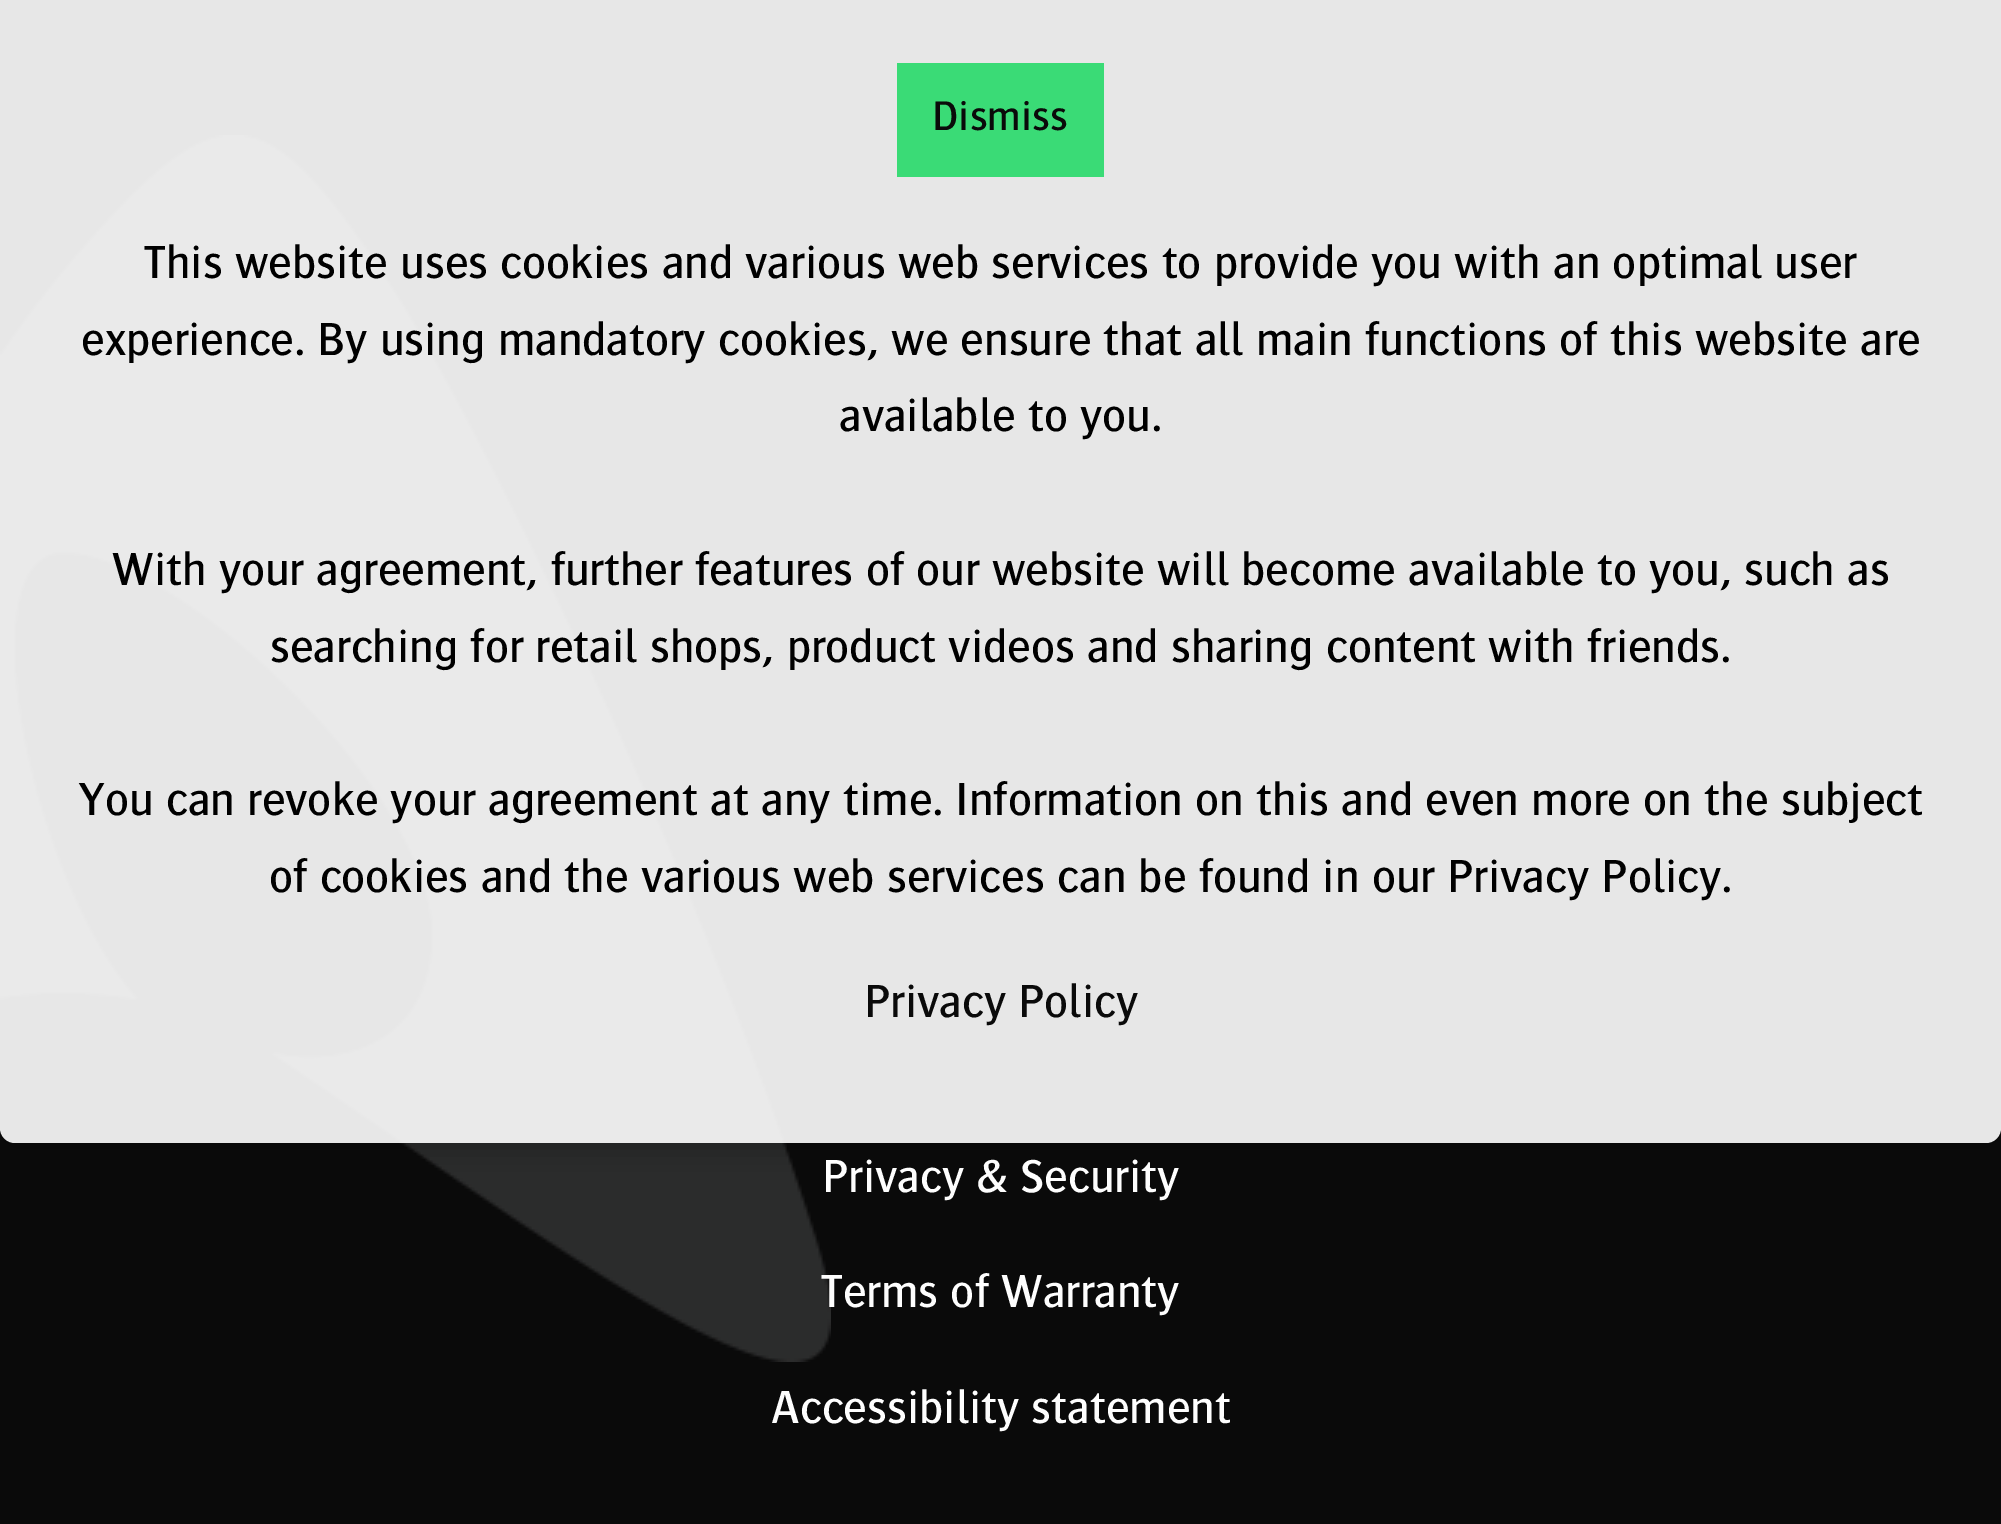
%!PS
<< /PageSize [2001 1524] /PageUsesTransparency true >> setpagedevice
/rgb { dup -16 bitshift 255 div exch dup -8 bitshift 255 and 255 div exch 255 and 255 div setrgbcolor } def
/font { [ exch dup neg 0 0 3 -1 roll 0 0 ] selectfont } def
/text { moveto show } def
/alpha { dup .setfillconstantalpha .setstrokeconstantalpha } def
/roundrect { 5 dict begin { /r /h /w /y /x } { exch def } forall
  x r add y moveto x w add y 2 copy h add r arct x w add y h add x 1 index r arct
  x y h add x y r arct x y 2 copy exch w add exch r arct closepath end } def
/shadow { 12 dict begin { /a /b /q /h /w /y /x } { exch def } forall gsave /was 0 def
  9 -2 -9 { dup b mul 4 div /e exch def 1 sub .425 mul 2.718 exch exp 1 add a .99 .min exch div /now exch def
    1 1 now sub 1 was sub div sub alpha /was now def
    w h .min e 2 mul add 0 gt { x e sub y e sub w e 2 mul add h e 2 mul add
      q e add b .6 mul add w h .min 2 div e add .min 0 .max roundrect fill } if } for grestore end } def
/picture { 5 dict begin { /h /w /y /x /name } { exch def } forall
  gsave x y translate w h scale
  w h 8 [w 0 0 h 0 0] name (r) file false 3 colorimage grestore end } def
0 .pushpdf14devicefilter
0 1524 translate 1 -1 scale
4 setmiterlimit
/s1 { /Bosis-Medium 43 font 16#0A0A0A rgb } def
/s2 { /Bosis-Medium 48 font 16#000000 rgb } def
/s3 { /Bosis-Medium 48 font 16#0A0A0A rgb } def
/s4 { /Bosis-Medium 48 font 16#FEFEFE rgb } def
16#0A0A0A rgb
0 0 2001 1524 rectfill
(pic1.raw) 0 135 831 1227 picture
gsave
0 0 moveto 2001 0 lineto 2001 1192 lineto 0 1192 lineto closepath 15 -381 moveto 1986 -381 lineto 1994.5 -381 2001 -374.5 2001 -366 curveto 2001 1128 lineto 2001 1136.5 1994.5 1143 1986 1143 curveto 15 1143 lineto 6.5 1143 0 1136.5 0 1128 curveto 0 -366 lineto 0 -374.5 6.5 -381 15 -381 curveto closepath eoclip newpath
16#000000 rgb
0 -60 2001 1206 15 15 0.3 shadow
grestore
0.9 alpha
16#FFFFFF rgb
0 -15 2001 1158 15 roundrect fill
1 alpha
16#3ADB76 rgb
897 63 207 114 rectfill
s1
(Dismiss) 932 130 text
s2
(This website uses cookies and various web services to provide you with an optimal user) 144 278 text
(experience. By using mandatory cookies, we ensure that all main functions of this website are) 81 355 text
(available to you.) 839 431 text
(With your agreement, further features of our website will become available to you, such as) 112 585 text
(searching for retail shops, product videos and sharing content with friends.) 270 662 text
(You can revoke your agreement at any time. Information on this and even more on the subject) 78 815 text
(of cookies and the various web services can be found in our Privacy Policy.) 269 892 text
s3
(Privacy Policy) 864 1017 text
s4
(Privacy & Security) 822 1192 text
(Terms of Warranty) 821 1307 text
(Accessibility statement) 771 1423 text
.poppdf14devicefilter showpage
